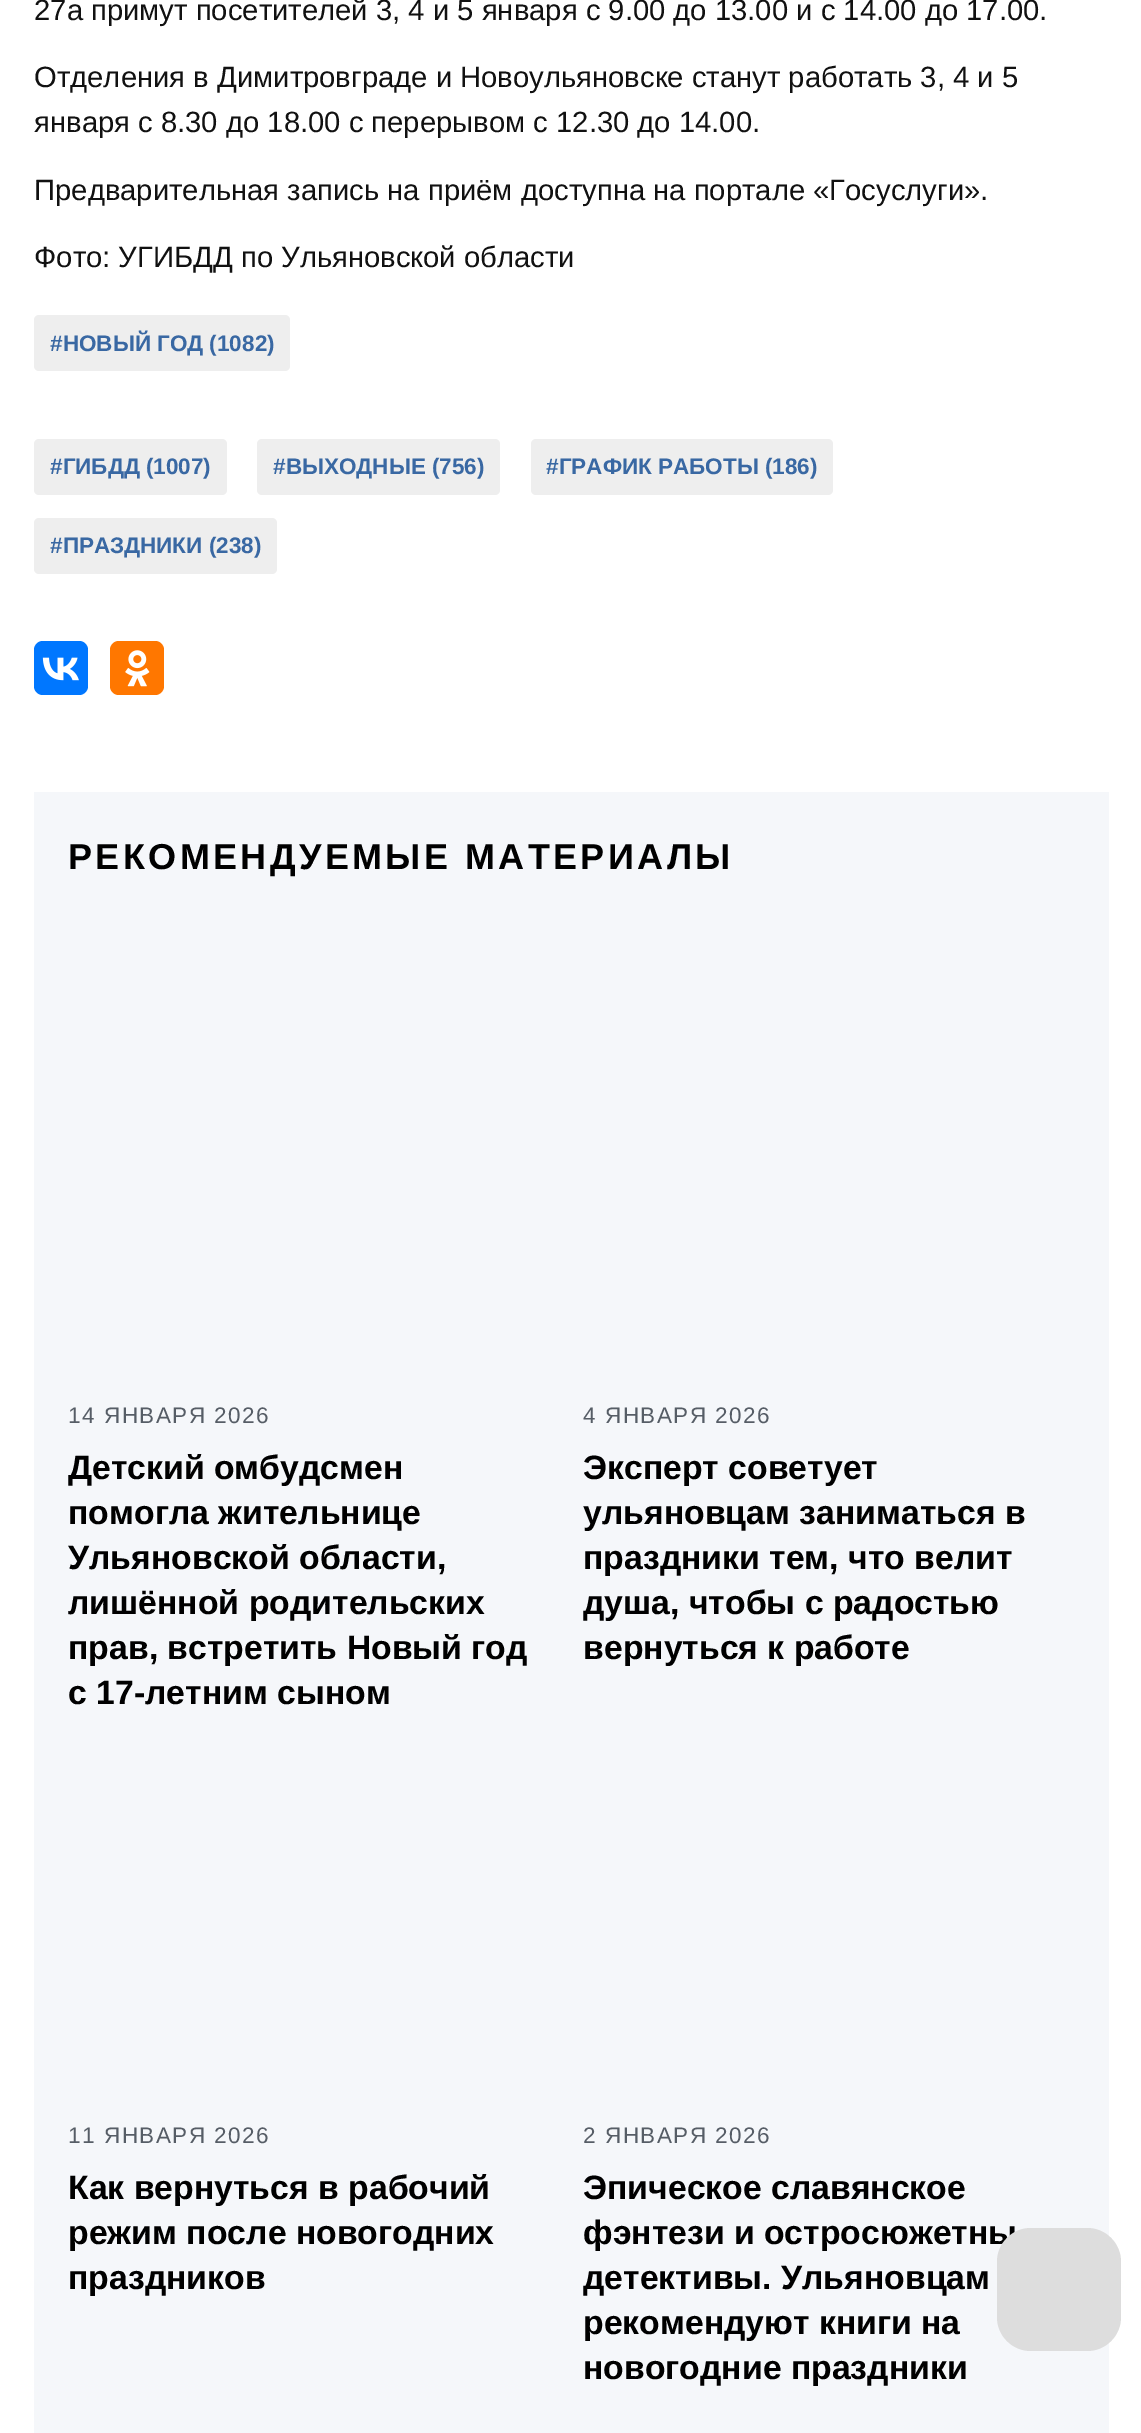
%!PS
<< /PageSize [1141 2433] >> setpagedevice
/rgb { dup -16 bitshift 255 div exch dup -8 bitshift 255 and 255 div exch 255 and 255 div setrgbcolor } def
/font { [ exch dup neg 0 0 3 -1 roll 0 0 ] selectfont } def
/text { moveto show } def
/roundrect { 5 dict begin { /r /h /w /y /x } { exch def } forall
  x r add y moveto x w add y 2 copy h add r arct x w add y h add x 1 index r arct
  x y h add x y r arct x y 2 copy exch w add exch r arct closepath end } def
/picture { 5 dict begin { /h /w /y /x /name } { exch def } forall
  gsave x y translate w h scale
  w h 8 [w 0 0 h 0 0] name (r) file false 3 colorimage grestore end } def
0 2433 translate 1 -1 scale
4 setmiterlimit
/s1 { /LiberationSans-Regular 29.25 font 16#111111 rgb } def
/s2 { /LiberationSans-Bold 22.5 font 16#3968A3 rgb } def
/s3 { /LiberationSans-Bold 33.75 font 16#000000 rgb } def
16#FFFFFF rgb
0 0 1141 2433 rectfill
s1
(27а примут посетителей 3, 4 и 5 января с 9.00 до 13.00 и с 14.00 до 17.00.) 34 20 text
(Отделения в Димитровграде и Новоульяновске станут работать 3, 4 и 5) 34 87 text
(января с 8.30 до 18.00 с перерывом с 12.30 до 14.00.) 34 132 text
(Предварительная запись на приём доступна на портале «Госуслуги».) 34 200 text
(Фото: УГИБДД по Ульяновской области) 34 267 text
16#EEEEEE rgb
34 315 256 56 5 roundrect fill
s2
(#НОВЫЙ ГОД \(1082\)) 50 351 text
16#EEEEEE rgb
34 439 193 56 5 roundrect fill
s2
(#ГИБДД \(1007\)) 50 474 text
16#EEEEEE rgb
257 439 243 56 5 roundrect fill
s2
(#ВЫХОДНЫЕ \(756\)) 273 474 text
16#EEEEEE rgb
531 439 302 56 5 roundrect fill
s2
(#ГРАФИК РАБОТЫ \(186\)) 546 474 text
16#EEEEEE rgb
34 518 243 56 5 roundrect fill
s2
(#ПРАЗДНИКИ \(238\)) 50 553 text
16#0077FF rgb
34 641 54 54 9 roundrect fill
(pic1.raw) 42 657 37 24 picture
16#FF7700 rgb
110 641 54 54 9 roundrect fill
(pic2.raw) 125 650 25 37 picture
16#F5F7FA rgb
34 792 1075 1641 rectfill
/LiberationSans-Bold 36 font
16#000000 rgb
68 869 moveto 3.4 0 (РЕКОМЕНДУЕМЫЕ МАТЕРИАЛЫ) ashow
/LiberationSans-Regular 22.5 font
16#565D66 rgb
68 1423 moveto 1.5 0 (14 ЯНВАРЯ 2026) ashow
s3
(Детский омбудсмен) 68 1479 text
(помогла жительнице) 68 1524 text
(Ульяновской области,) 68 1569 text
(лишённой родительских) 68 1614 text
(прав, встретить Новый год) 68 1659 text
(с 17-летним сыном) 68 1704 text
/LiberationSans-Regular 22.5 font
16#565D66 rgb
583 1423 moveto 1.5 0 (4 ЯНВАРЯ 2026) ashow
s3
(Эксперт советует) 583 1479 text
(ульяновцам заниматься в) 583 1524 text
(праздники тем, что велит) 583 1569 text
(душа, чтобы с радостью) 583 1614 text
(вернуться к работе) 583 1659 text
/LiberationSans-Regular 22.5 font
16#565D66 rgb
68 2143 moveto 1.5 0 (11 ЯНВАРЯ 2026) ashow
s3
(Как вернуться в рабочий) 68 2199 text
(режим после новогодних) 68 2244 text
(праздников) 68 2289 text
/LiberationSans-Regular 22.5 font
16#565D66 rgb
583 2143 moveto 1.5 0 (2 ЯНВАРЯ 2026) ashow
s3
(Эпическое славянское) 583 2199 text
(фэнтези и остросюжетны) 583 2244 text
(детективы. Ульяновцам) 583 2289 text
(рекомендуют книги на) 583 2334 text
(новогодние праздники) 583 2379 text
16#DDDDDD rgb
997 2228 124 123 34 roundrect fill
showpage
